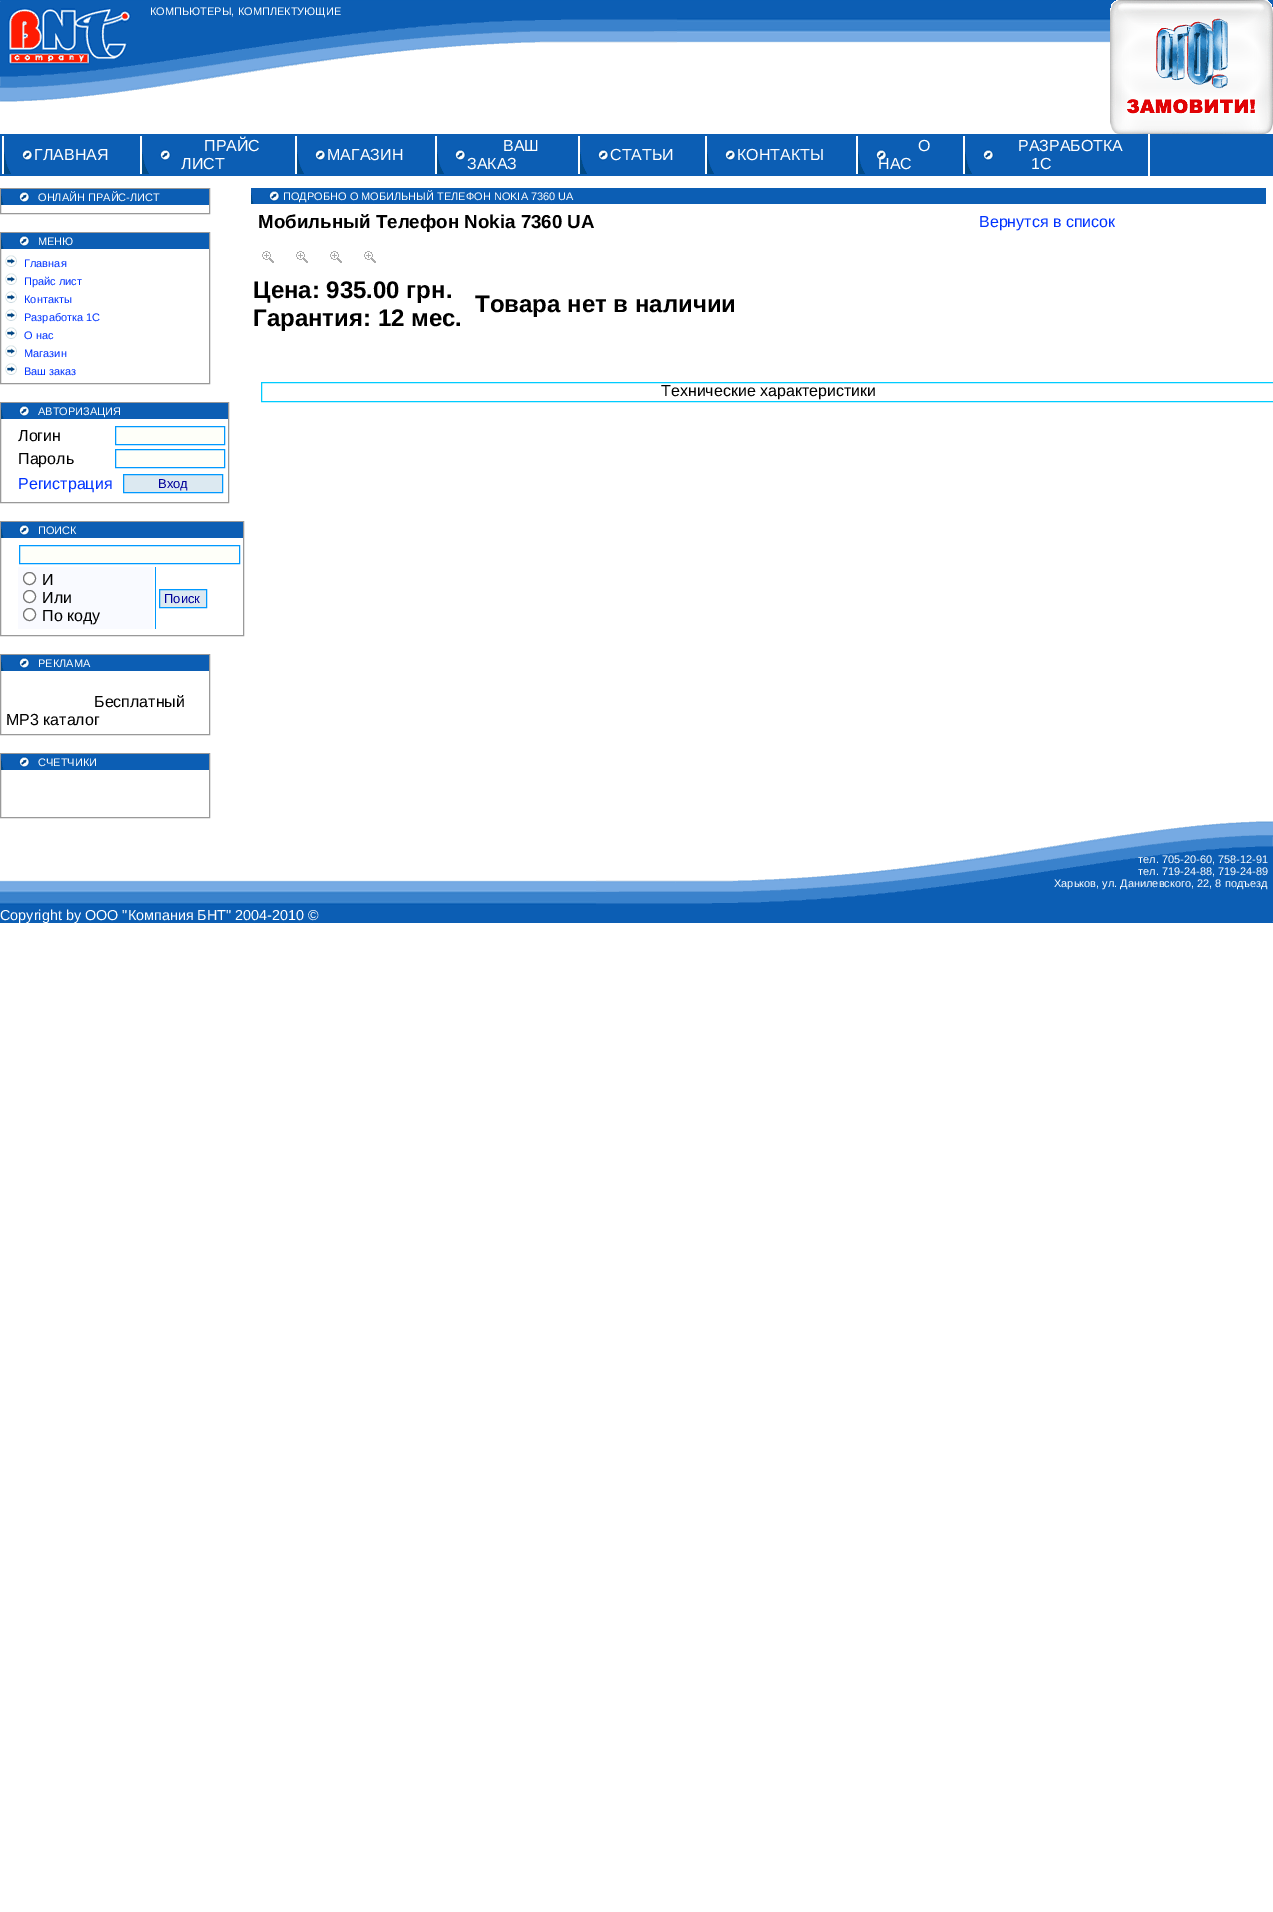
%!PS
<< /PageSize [1273 1912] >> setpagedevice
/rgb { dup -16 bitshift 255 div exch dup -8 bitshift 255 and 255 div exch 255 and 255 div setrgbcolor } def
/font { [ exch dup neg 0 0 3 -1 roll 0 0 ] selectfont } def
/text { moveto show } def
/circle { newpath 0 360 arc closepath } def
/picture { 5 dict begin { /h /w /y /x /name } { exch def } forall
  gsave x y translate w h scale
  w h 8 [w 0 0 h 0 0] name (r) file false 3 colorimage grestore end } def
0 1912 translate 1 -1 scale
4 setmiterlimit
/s1 { /LiberationSans-Regular 11 font 16#FFFFFF rgb } def
/s2 { /LiberationSans-Regular 16 font 16#FFFFFF rgb } def
/s3 { /LiberationSans-Regular 11 font 16#0033FF rgb } def
/s4 { /LiberationSans-Regular 16 font 16#000000 rgb } def
/s5 { /LiberationSans-Regular 16 font 16#0033FF rgb } def
/s6 { /LiberationSans-Regular 13 font 16#000099 rgb } def
/s7 { /LiberationSans-Bold 18.75 font 16#000000 rgb } def
/s8 { /LiberationSans-Bold 24 font 16#000000 rgb } def
/s9 { /LiberationSans-Regular 14.4 font 16#FFFFFF rgb } def
16#FFFFFF rgb
0 0 1273 1912 rectfill
(pic1.raw) 0 0 1273 43 picture
(pic2.raw) 0 1 677 101 picture
s1
(КОМПЬЮТЕРЫ, КОМПЛЕКТУЮЩИЕ) 150 15 text
(pic3.raw) 1110 0 163 134 picture
16#0C5EB4 rgb
0 134 1273 42 rectfill
16#FFFFFF rgb
1148 134 2 42 rectfill
(pic4.raw) 4 136 29 38 picture
2 136 2 38 rectfill
s2
(ГЛАВНАЯ) 34 160 text
(pic4.raw) 142 136 29 38 picture
140 136 2 38 rectfill
(ПРАЙС) 204 151 text
(ЛИСТ) 181 169 text
(pic4.raw) 297 136 29 38 picture
295 136 2 38 rectfill
(МАГАЗИН) 327 160 text
(pic4.raw) 437 136 29 38 picture
435 136 2 38 rectfill
(ВАШ) 503 151 text
(ЗАКАЗ) 467 169 text
(pic4.raw) 580 136 29 38 picture
578 136 2 38 rectfill
(СТАТЬИ) 610 160 text
(pic4.raw) 707 136 29 38 picture
705 136 2 38 rectfill
(КОНТАКТЫ) 737 160 text
(pic4.raw) 858 136 29 38 picture
856 136 2 38 rectfill
(О) 918 151 text
(НАС) 878 169 text
(pic4.raw) 965 136 29 38 picture
963 136 2 38 rectfill
(РАЗРАБОТКА) 1018 151 text
(1С) 1031 169 text
16#999999 rgb
0.5 188.5 209 25 rectstroke
16#0C5EB4 rgb
30 189 179 16 rectfill
(pic5.raw) 1 189 29 16 picture
s1
(ОНЛАЙН ПРАЙС-ЛИСТ) 38 201 text
16#999999 rgb
0.5 232.5 209 151 rectstroke
16#0C5EB4 rgb
30 233 179 16 rectfill
(pic5.raw) 1 233 29 16 picture
s1
(МЕНЮ) 38 245 text
(pic6.raw) 5 255 12 12 picture
s3
(Главная) 24 267 text
(pic6.raw) 5 273 12 12 picture
(Прайс лист) 24 285 text
(pic6.raw) 5 291 12 12 picture
(Контакты) 24 303 text
(pic6.raw) 5 309 12 12 picture
(Разработка 1С) 24 321 text
(pic6.raw) 5 327 12 12 picture
(О нас) 24 339 text
(pic6.raw) 5 345 12 12 picture
(Магазин) 24 357 text
(pic6.raw) 5 363 12 12 picture
(Ваш заказ) 24 375 text
16#999999 rgb
0.5 402.5 228 100 rectstroke
16#0C5EB4 rgb
30 403 198 16 rectfill
(pic5.raw) 1 403 29 16 picture
s1
(АВТОРИЗАЦИЯ) 38 415 text
s4
(Логин) 18 441 text
16#FEFFF9 rgb
115.5 426.5 moveto 224.5 426.5 lineto 224.5 444.5 lineto 115.5 444.5 lineto closepath gsave fill grestore
16#0099FF rgb
stroke
s4
(Пароль) 18 464 text
16#FEFFF9 rgb
115.5 449.5 moveto 224.5 449.5 lineto 224.5 467.5 lineto 115.5 467.5 lineto closepath gsave fill grestore
16#0099FF rgb
stroke
s5
(Регистрация) 18 489 text
16#DCE9F1 rgb
123.5 474.5 moveto 222.5 474.5 lineto 222.5 492.5 lineto 123.5 492.5 lineto closepath gsave fill grestore
16#0099FF rgb
stroke
s6
(Вход) 158 488 text
16#999999 rgb
0.5 521.5 243 114 rectstroke
16#0C5EB4 rgb
30 522 213 16 rectfill
(pic5.raw) 1 522 29 16 picture
s1
(ПОИСК) 38 534 text
16#FEFFF9 rgb
19.5 545.5 moveto 239.5 545.5 lineto 239.5 563.5 lineto 19.5 563.5 lineto closepath gsave fill grestore
16#0099FF rgb
stroke
16#F9FAFF rgb
18 567 135 62 rectfill
16#FFFFFF rgb
29.5 578.5 6 circle gsave fill grestore
16#767676 rgb
stroke
s4
(И) 42 585 text
16#FFFFFF rgb
29.5 596.5 6 circle gsave fill grestore
16#767676 rgb
stroke
s4
(Или) 42 603 text
16#FFFFFF rgb
29.5 614.5 6 circle gsave fill grestore
16#767676 rgb
stroke
s4
(По коду) 42 621 text
16#0099FF rgb
155 567 1 62 rectfill
16#DCE9F1 rgb
159.5 589.5 moveto 206.5 589.5 lineto 206.5 607.5 lineto 159.5 607.5 lineto closepath gsave fill grestore
16#0099FF rgb
stroke
s6
(Поиск) 164 603 text
16#999999 rgb
0.5 654.5 209 80 rectstroke
16#0C5EB4 rgb
30 655 179 16 rectfill
(pic5.raw) 1 655 29 16 picture
s1
(РЕКЛАМА) 38 667 text
s4
(Бесплатный) 94 707 text
(MP3 каталог) 6 725 text
16#999999 rgb
0.5 753.5 209 64 rectstroke
16#0C5EB4 rgb
30 754 179 16 rectfill
(pic5.raw) 1 754 29 16 picture
s1
(СЧЕТЧИКИ) 38 766 text
16#0C5EB4 rgb
280 188 986 16 rectfill
(pic5.raw) 251 188 29 16 picture
s1
(ПОДРОБНО О МОБИЛЬНЫЙ ТЕЛЕФОН NOKIA 7360 UA) 283 200 text
s7
(Мобильный Телефон Nokia 7360 UA) 258 228 text
s5
(Вернутся в список) 979 227 text
(pic7.raw) 262 251 12 12 picture
(pic7.raw) 296 251 12 12 picture
(pic7.raw) 330 251 12 12 picture
(pic7.raw) 364 251 12 12 picture
s8
(Цена: 935.00 грн.) 253 298 text
(Гарантия: 12 мес.) 253 326 text
(Товара нет в наличии) 475 312 text
16#00CCFF rgb
261.5 382.5 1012 19 rectstroke
s4
(Технические характеристики) 661 396 text
(pic8.raw) 596 821 677 102 picture
s1
(тел. 705-20-60, 758-12-91) 1138 863 text
(тел. 719-24-88, 719-24-89) 1138 875 text
(Харьков, ул. Данилевского, 22, 8 подъезд) 1054 887 text
(pic9.raw) 0 880 596 43 picture
s9
(Copyright by ООО "Компания БНТ" 2004-2010 ©) 0 920 text
showpage
